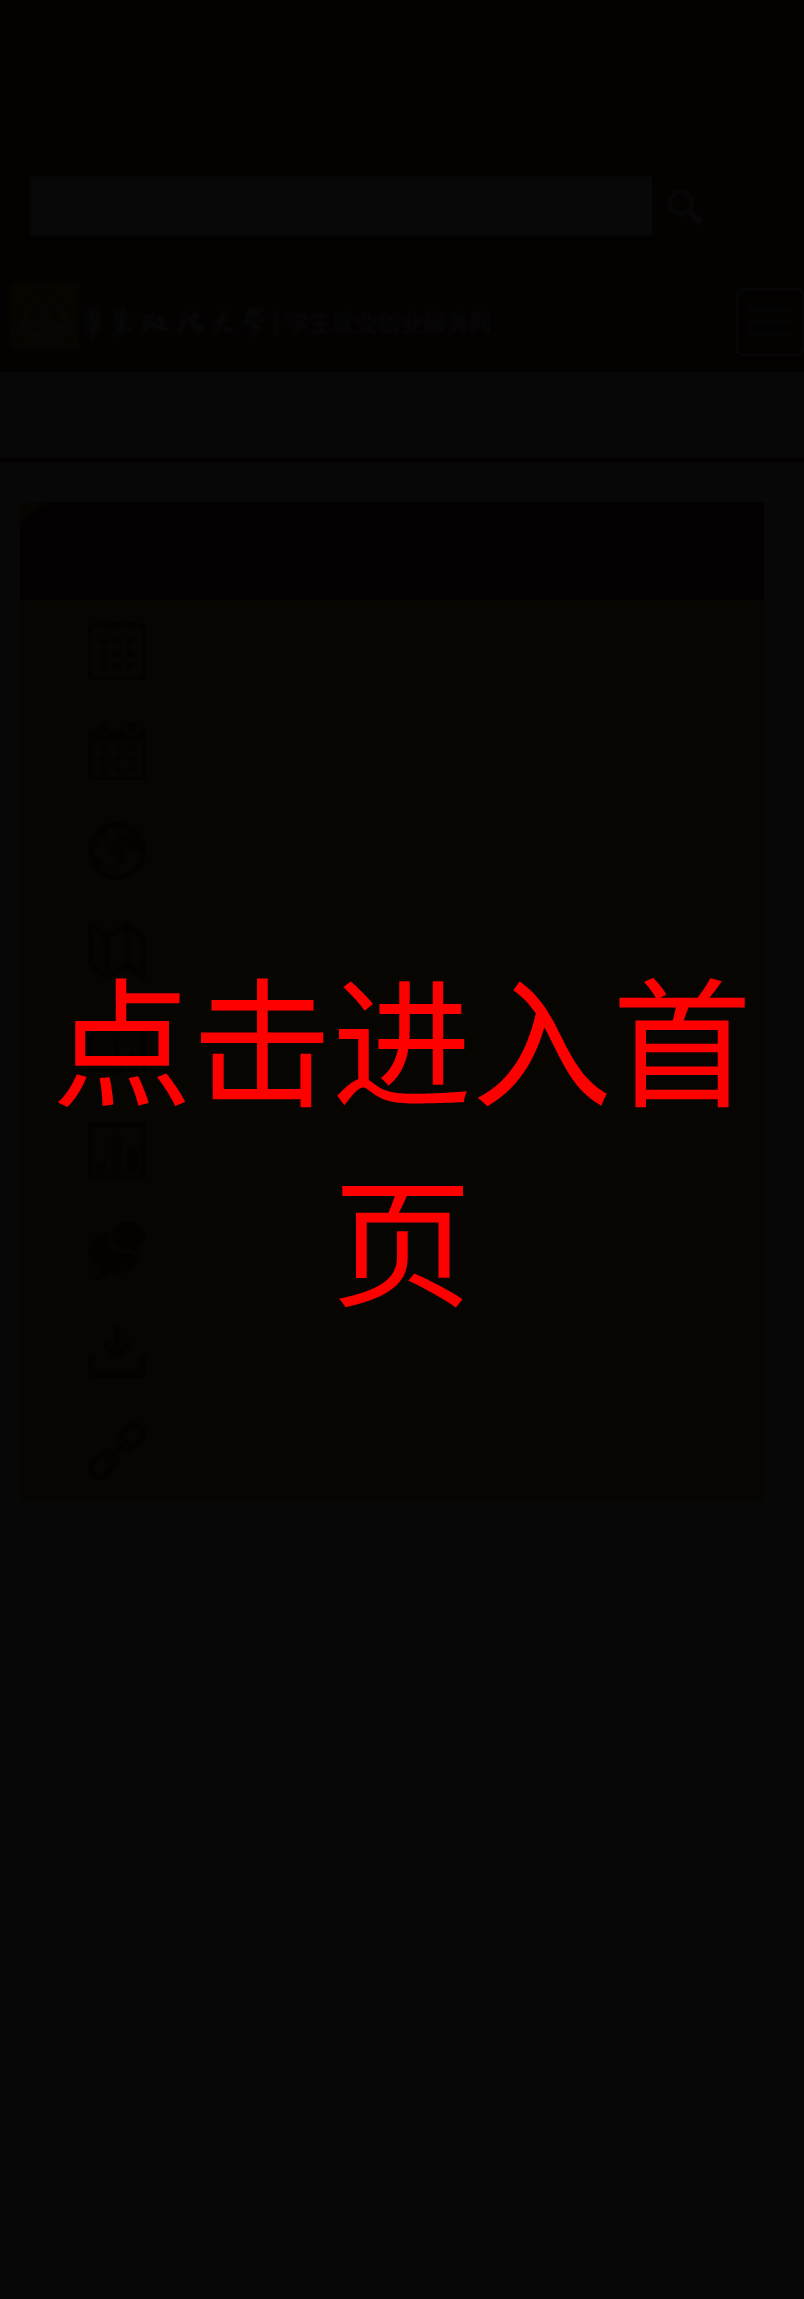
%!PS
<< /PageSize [804 2299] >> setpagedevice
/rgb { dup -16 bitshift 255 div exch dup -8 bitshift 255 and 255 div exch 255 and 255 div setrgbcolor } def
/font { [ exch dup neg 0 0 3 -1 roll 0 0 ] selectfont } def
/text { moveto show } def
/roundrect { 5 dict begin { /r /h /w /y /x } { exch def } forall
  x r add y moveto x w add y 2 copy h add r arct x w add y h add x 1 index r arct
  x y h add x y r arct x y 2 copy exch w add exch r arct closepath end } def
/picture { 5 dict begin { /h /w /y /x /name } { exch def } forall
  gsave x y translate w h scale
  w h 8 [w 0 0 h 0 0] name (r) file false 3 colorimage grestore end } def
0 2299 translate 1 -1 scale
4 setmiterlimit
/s1 { /NotoSansCJKSC-Regular 140 font 16#FF0000 rgb } def
16#070707 rgb
0 0 804 2299 rectfill
16#030000 rgb
0 0 804 272 rectfill
16#080808 rgb
32 180 620 54 rectfill
16#070707 rgb
32 178 628 2 rectfill
16#060606 rgb
2 setlinewidth
31 177 630 58 rectstroke
(pic1.raw) 652 176 60 60 picture
16#040101 rgb
0 272 804 100 rectfill
(pic2.raw) 10 282 480 68 picture
16#070707 rgb
737 289 66 66 7 roundrect stroke
16#040404 rgb
748 308 44 4 2 roundrect fill
748 320 44 4 2 roundrect fill
748 332 44 4 2 roundrect fill
16#050001 rgb
0 458 804 4 rectfill
16#060501 rgb
20 602 744 898 rectfill
16#050001 rgb
20 502 744 98 rectfill
(pic3.raw) 20 502 26 20 picture
16#080601 rgb
20 600 744 2 rectfill
(pic4.raw) 88 622 58 58 picture
(pic5.raw) 88 722 58 58 picture
(pic6.raw) 88 822 58 58 picture
(pic7.raw) 88 922 58 58 picture
(pic8.raw) 88 1029 58 46 picture
(pic9.raw) 88 1122 58 58 picture
(pic10.raw) 88 1222 58 58 picture
(pic11.raw) 88 1323 58 56 picture
(pic12.raw) 88 1422 58 58 picture
20 1500 744 2 rectfill
s1
(点击进入首) 52 1096 text
(页) 332 1296 text
showpage
